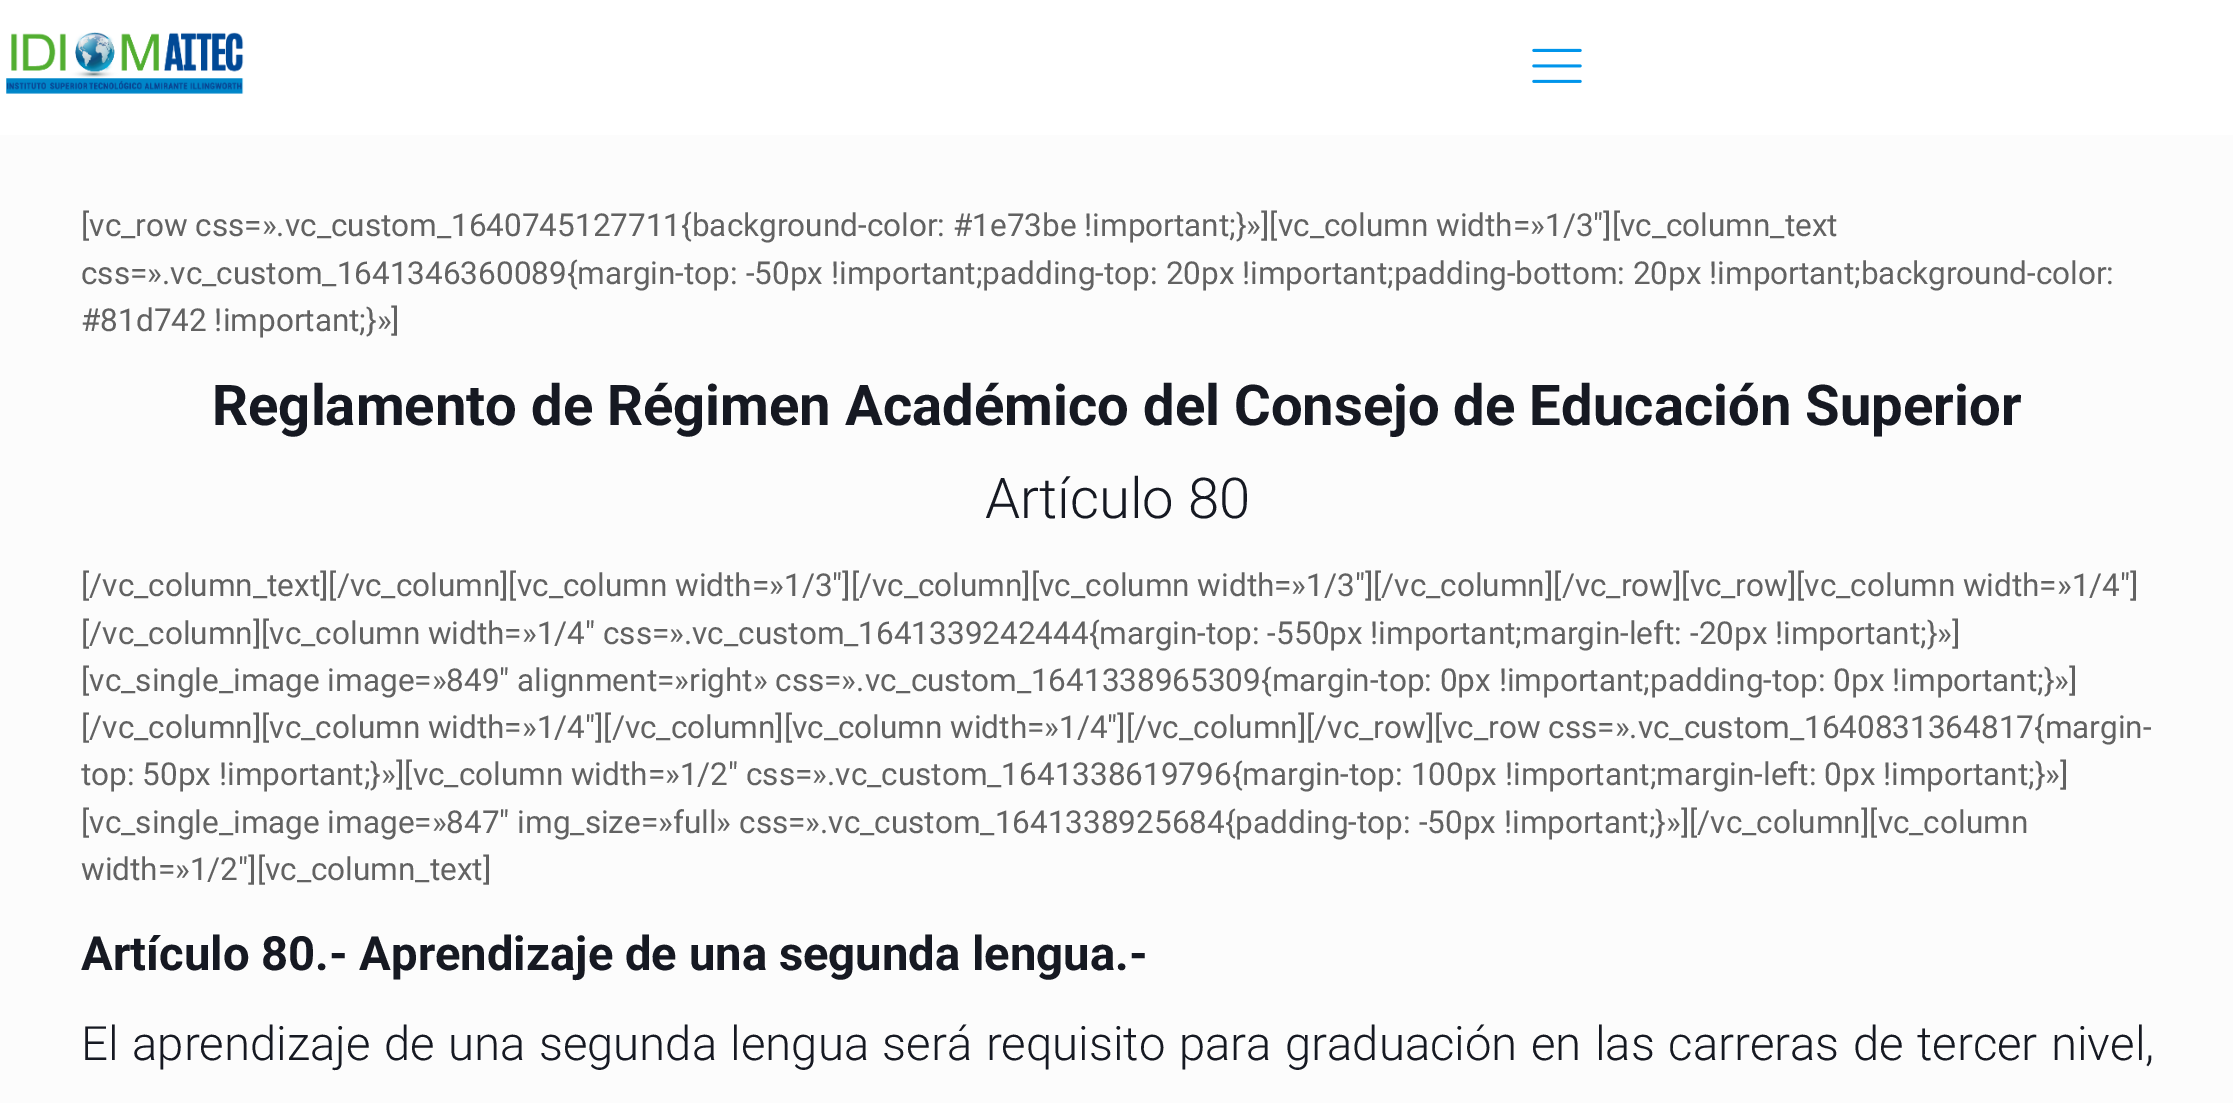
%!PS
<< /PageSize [2233 1103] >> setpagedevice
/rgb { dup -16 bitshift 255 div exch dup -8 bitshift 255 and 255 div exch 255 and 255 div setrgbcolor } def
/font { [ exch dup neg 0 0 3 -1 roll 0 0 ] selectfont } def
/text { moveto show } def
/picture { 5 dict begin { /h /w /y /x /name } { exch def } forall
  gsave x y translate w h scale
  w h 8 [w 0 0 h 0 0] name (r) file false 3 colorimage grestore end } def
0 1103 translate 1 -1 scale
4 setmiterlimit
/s1 { /Roboto-Regular 31.5 font 16#626262 rgb } def
/s2 { /Roboto-Bold 56.25 font 16#161922 rgb } def
/s3 { /Roboto-Light 56.25 font 16#161922 rgb } def
/s4 { /Roboto-Bold 47.25 font 16#161922 rgb } def
16#FCFCFC rgb
0 0 2233 1103 rectfill
16#FFFFFF rgb
0 0 2233 135 rectfill
(pic1.raw) 6 32 238 62 picture
(pic2.raw) 1532 48 50 35 picture
s1
([vc_row css=».vc_custom_1640745127711{background-color: #1e73be !important;}»][vc_column width=»1/3″][vc_column_text) 81 236 text
(css=».vc_custom_1641346360089{margin-top: -50px !important;padding-top: 20px !important;padding-bottom: 20px !important;background-color:) 81 284 text
(#81d742 !important;}»]) 81 331 text
s2
(Reglamento de Régimen Académico del Consejo de Educación Superior) 212 425 text
s3
(Artículo 80) 985 518 text
s1
([/vc_column_text][/vc_column][vc_column width=»1/3″][/vc_column][vc_column width=»1/3″][/vc_column][/vc_row][vc_row][vc_column width=»1/4″]) 81 596 text
([/vc_column][vc_column width=»1/4″ css=».vc_custom_1641339242444{margin-top: -550px !important;margin-left: -20px !important;}»]) 81 644 text
([vc_single_image image=»849″ alignment=»right» css=».vc_custom_1641338965309{margin-top: 0px !important;padding-top: 0px !important;}»]) 81 691 text
([/vc_column][vc_column width=»1/4″][/vc_column][vc_column width=»1/4″][/vc_column][/vc_row][vc_row css=».vc_custom_1640831364817{margin-) 81 738 text
(top: 50px !important;}»][vc_column width=»1/2″ css=».vc_custom_1641338619796{margin-top: 100px !important;margin-left: 0px !important;}»]) 81 785 text
([vc_single_image image=»847″ img_size=»full» css=».vc_custom_1641338925684{padding-top: -50px !important;}»][/vc_column][vc_column) 81 833 text
(width=»1/2″][vc_column_text]) 81 880 text
s4
(Artículo 80.- Aprendizaje de una segunda lengua.-) 81 970 text
/Roboto-Light 47.25 font
81 1060 moveto 2 0 32 (El aprendizaje de una segunda lengua será requisito para graduación en las carreras de tercer nivel,) widthshow
showpage
